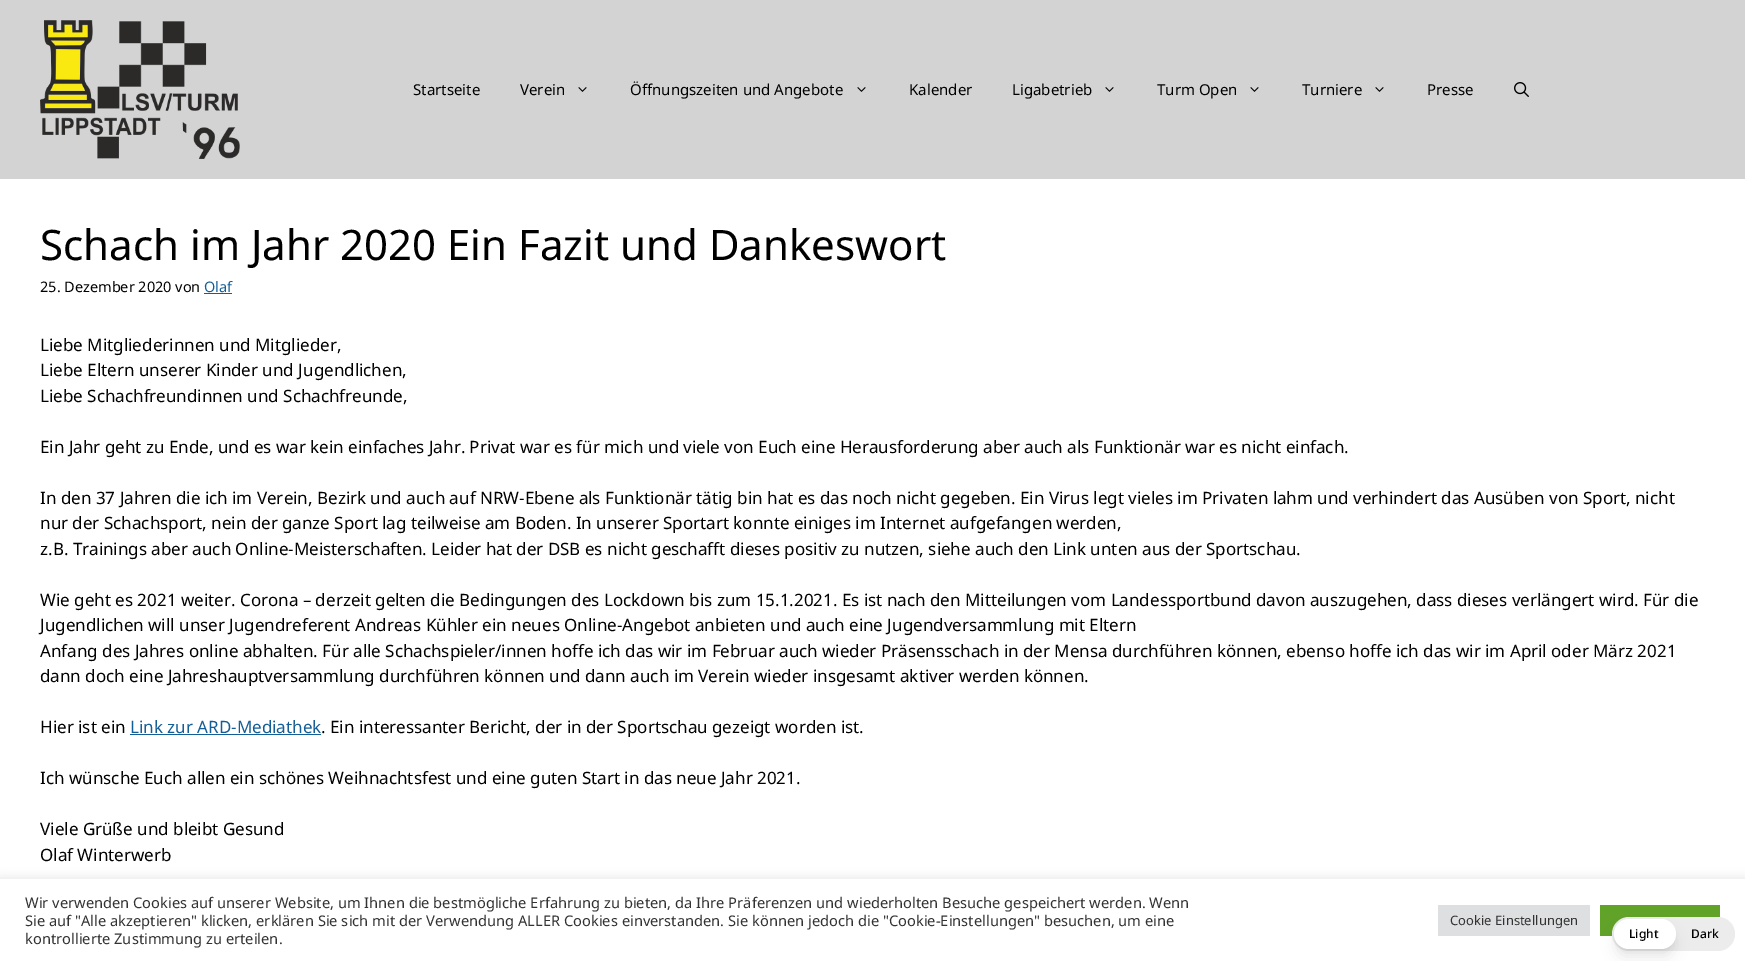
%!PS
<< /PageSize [1745 961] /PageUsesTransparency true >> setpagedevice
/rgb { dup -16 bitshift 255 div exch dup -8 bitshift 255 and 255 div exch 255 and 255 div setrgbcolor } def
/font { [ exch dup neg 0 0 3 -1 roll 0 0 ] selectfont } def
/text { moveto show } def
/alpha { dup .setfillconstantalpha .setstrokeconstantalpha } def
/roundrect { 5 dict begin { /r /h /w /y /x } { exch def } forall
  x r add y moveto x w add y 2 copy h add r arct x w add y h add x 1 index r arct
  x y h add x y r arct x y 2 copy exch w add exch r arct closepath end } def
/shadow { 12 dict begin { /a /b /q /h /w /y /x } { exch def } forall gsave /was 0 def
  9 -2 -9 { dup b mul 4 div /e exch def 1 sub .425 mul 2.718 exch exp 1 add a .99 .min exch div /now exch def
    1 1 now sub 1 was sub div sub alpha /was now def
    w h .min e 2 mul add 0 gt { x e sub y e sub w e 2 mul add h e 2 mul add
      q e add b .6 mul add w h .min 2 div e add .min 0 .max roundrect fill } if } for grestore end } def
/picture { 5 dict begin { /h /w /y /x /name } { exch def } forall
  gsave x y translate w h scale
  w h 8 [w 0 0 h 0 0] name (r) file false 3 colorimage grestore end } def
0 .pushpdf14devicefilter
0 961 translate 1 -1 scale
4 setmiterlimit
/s1 { /NotoSans-Regular 15 font 16#000000 rgb } def
/s2 { /NotoSans-Regular 42 font 16#000000 rgb } def
/s3 { /NotoSans-Regular 14.5 font 16#000000 rgb } def
/s4 { /NotoSans-Regular 14.5 font 16#135E96 rgb } def
/s5 { /NotoSans-Regular 17 font 16#000000 rgb } def
/s6 { /NotoSans-Regular 17 font 16#135E96 rgb } def
/s7 { /NotoSans-Regular 14.67 font 16#333333 rgb } def
/s8 { /NotoSans-Regular 13 font 16#333333 rgb } def
/s9 { /NotoSans-Medium 12 font 16#000000 rgb } def
16#FFFFFF rgb
0 0 1745 961 rectfill
16#D3D3D3 rgb
0 0 1745 179 rectfill
(pic1.raw) 40 20 200 139 picture
s1
(Startseite) 413 95 text
(Verein) 520 95 text
(pic2.raw) 578 87 9 5 picture
(Öffnungszeiten und Angebote) 630 95 text
(pic2.raw) 857 87 9 5 picture
(Kalender) 909 95 text
(Ligabetrieb) 1012 95 text
(pic2.raw) 1105 87 9 5 picture
(Turm Open) 1157 95 text
(pic2.raw) 1250 87 9 5 picture
(Turniere) 1302 95 text
(pic2.raw) 1375 87 9 5 picture
(Presse) 1427 95 text
(pic3.raw) 1514 82 15 15 picture
s2
(Schach im Jahr 2020 Ein Fazit und Dankeswort) 40 260 text
s3
(25. Dezember 2020 von) 40 292 text
s4
(Olaf) 204 292 text
204 293 28 1 rectfill
s5
(Liebe Mitgliederinnen und Mitglieder,) 40 351 text
(Liebe Eltern unserer Kinder und Jugendlichen,) 40 376 text
(Liebe Schachfreundinnen und Schachfreunde,) 40 402 text
(Ein Jahr geht zu Ende, und es war kein einfaches Jahr. Privat war es für mich und viele von Euch eine Herausforderung aber auch als Funktionär war es nicht einfach.) 40 453 text
(In den 37 Jahren die ich im Verein, Bezirk und auch auf NRW-Ebene als Funktionär tätig bin hat es das noch nicht gegeben. Ein Virus legt vieles im Privaten lahm und verhindert das Ausüben von Sport, nicht) 40 504 text
(nur der Schachsport, nein der ganze Sport lag teilweise am Boden. In unserer Sportart konnte einiges im Internet aufgefangen werden,) 40 529 text
(z.B. Trainings aber auch Online-Meisterschaften. Leider hat der DSB es nicht geschafft dieses positiv zu nutzen, siehe auch den Link unten aus der Sportschau.) 40 555 text
(Wie geht es 2021 weiter. Corona – derzeit gelten die Bedingungen des Lockdown bis zum 15.1.2021. Es ist nach den Mitteilungen vom Landessportbund davon auszugehen, dass dieses verlängert wird. Für die) 40 606 text
(Jugendlichen will unser Jugendreferent Andreas Kühler ein neues Online-Angebot anbieten und auch eine Jugendversammlung mit Eltern) 40 631 text
(Anfang des Jahres online abhalten. Für alle Schachspieler/innen hoffe ich das wir im Februar auch wieder Präsensschach in der Mensa durchführen können, ebenso hoffe ich das wir im April oder März 2021) 40 657 text
(dann doch eine Jahreshauptversammlung durchführen können und dann auch im Verein wieder insgesamt aktiver werden können.) 40 682 text
(Hier ist ein) 40 733 text
s6
(Link zur ARD-Mediathek) 130 733 text
130 734 191 1 rectfill
s5
(. Ein interessanter Bericht, der in der Sportschau gezeigt worden ist.) 321 733 text
(Ich wünsche Euch allen ein schönes Weihnachtsfest und eine guten Start in das neue Jahr 2021.) 40 784 text
(Viele Grüße und bleibt Gesund) 40 835 text
(Olaf Winterwerb) 40 861 text
16#ACABAB rgb
0 878 1745 82 0 5 0.3 shadow
16#FFFFFF rgb
0 879 1745 82 rectfill
s7
(Wir verwenden Cookies auf unserer Website, um Ihnen die bestmögliche Erfahrung zu bieten, da Ihre Präferenzen und wiederholten Besuche gespeichert werden. Wenn) 25 908 text
(Sie auf "Alle akzeptieren" klicken, erklären Sie sich mit der Verwendung ALLER Cookies einverstanden. Sie können jedoch die "Cookie-Einstellungen" besuchen, um eine) 25 926 text
(kontrollierte Zustimmung zu erteilen.) 25 944 text
16#DEDFE0 rgb
1438 905 152 31 rectfill
s8
(Cookie Einstellungen) 1450 925 text
16#61A229 rgb
1600 905 120 31 rectfill
16#ECECEC rgb
1612 917 123 34 17 roundrect fill
16#000000 rgb
1618 927 54 22 11 3 0.1 shadow
1617 932 56 24 12 7.5 0.1 shadow
16#FFFFFF rgb
1614 919 62 30 15 roundrect fill
s9
(Light) 1629 938 text
(Dark) 1691 938 text
.poppdf14devicefilter showpage
